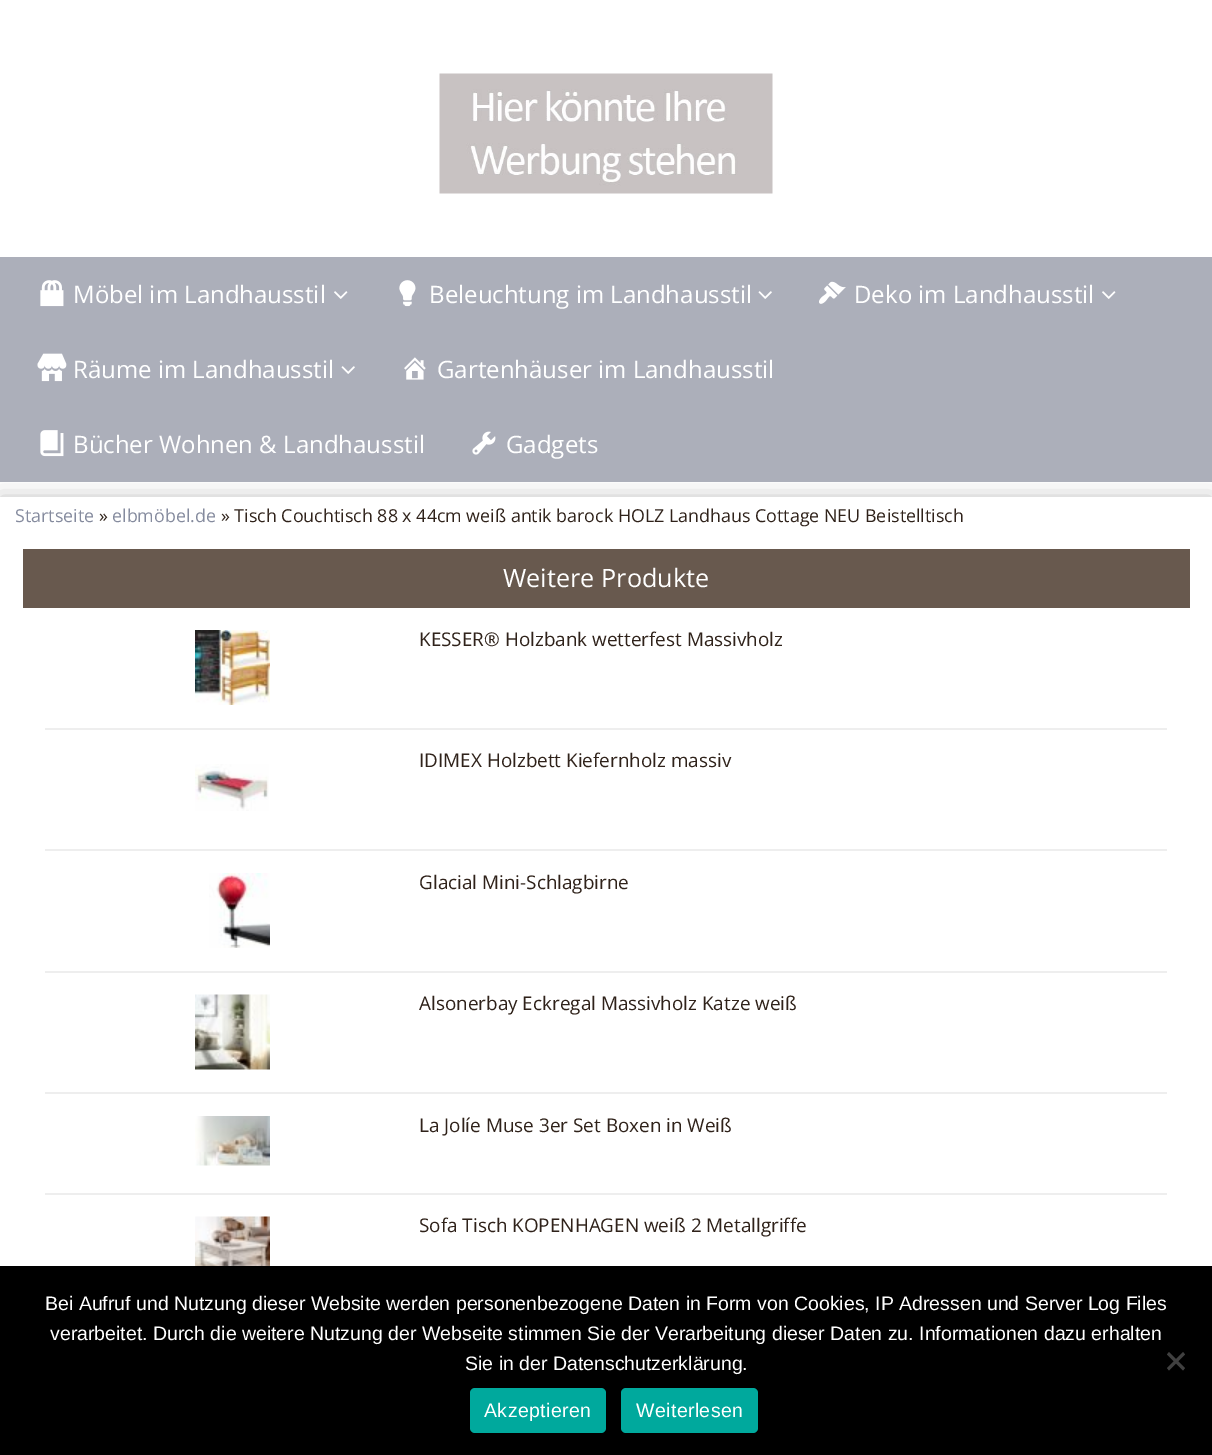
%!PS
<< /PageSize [1212 1455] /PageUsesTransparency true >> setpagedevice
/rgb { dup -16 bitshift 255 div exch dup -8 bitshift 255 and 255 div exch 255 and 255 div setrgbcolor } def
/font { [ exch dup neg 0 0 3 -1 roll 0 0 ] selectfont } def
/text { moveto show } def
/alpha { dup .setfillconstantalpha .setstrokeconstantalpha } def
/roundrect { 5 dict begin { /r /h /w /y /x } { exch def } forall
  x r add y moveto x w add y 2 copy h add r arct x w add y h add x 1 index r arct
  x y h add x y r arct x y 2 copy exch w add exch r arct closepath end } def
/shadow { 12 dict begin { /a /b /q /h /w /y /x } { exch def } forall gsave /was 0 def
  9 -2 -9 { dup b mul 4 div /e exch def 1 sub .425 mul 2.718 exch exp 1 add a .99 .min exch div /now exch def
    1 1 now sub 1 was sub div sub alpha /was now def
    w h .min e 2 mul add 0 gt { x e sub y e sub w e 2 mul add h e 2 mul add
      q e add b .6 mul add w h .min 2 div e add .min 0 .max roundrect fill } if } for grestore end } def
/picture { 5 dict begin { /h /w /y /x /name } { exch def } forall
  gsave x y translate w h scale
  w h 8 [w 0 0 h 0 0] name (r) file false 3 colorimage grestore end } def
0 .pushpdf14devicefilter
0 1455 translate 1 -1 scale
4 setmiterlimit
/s1 { /OpenSans-Regular 24 font 16#FFFFFF rgb } def
/s2 { /OpenSans-Regular 17.85 font 16#858B9E rgb } def
/s3 { /OpenSans-Regular 17.85 font 16#2F221A rgb } def
/s4 { /OpenSans-Regular 25.25 font 16#FFFFFF rgb } def
/s5 { /OpenSans-Regular 18.9 font 16#2F221A rgb } def
/s6 { /LiberationSans-Regular 19.5 font 16#FFFFFF rgb } def
16#FFFFFF rgb
0 0 1212 1455 rectfill
(pic1.raw) 439 73 334 121 picture
gsave
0 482 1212 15 rectclip
16#C1C1C1 rgb
0 497 1212 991 0 11 1 shadow
grestore
16#ACAFBA rgb
0 257 1212 225 rectfill
(pic2.raw) 40 280 24 27 picture
s1
(Möbel im Landhausstil) 73 303 text
(pic3.raw) 334 291 14 8 picture
(pic4.raw) 399 280 17 27 picture
(Beleuchtung im Landhausstil) 429 303 text
(pic5.raw) 758 291 14 8 picture
(pic6.raw) 819 281 27 23 picture
(Deko im Landhausstil) 854 303 text
(pic3.raw) 1102 291 14 8 picture
(pic7.raw) 37 353 30 29 picture
(Räume im Landhausstil) 73 378 text
(pic5.raw) 341 366 14 8 picture
(pic8.raw) 404 357 22 23 picture
(Gartenhäuser im Landhausstil) 437 378 text
(pic9.raw) 40 430 24 27 picture
(Bücher Wohnen & Landhausstil) 73 453 text
(pic10.raw) 472 431 24 24 picture
(Gadgets) 506 453 text
s2
(Startseite) 15 522 text
s3
(») 99 522 text
s2
(elbmöbel.de) 112 522 text
s3
(» Tisch Couchtisch 88 x 44cm weiß antik barock HOLZ Landhaus Cottage NEU Beistelltisch) 221 522 text
16#68594E rgb
23 549 1167 59 rectfill
s4
(Weitere Produkte) 503 587 text
16#EEEEEE rgb
45 728 1122 2 rectfill
(pic11.raw) 195 630 75 75 picture
s5
(KESSER® Holzbank wetterfest Massivholz) 419 646 text
16#EEEEEE rgb
45 849 1122 2 rectfill
s5
(IDIMEX Holzbett Kiefernholz massiv) 419 767 text
(pic12.raw) 195 764 74 47 picture
16#EEEEEE rgb
45 971 1122 2 rectfill
(pic13.raw) 209 873 61 75 picture
s5
(Glacial Mini-Schlagbirne) 419 889 text
16#EEEEEE rgb
45 1092 1122 2 rectfill
(pic14.raw) 195 994 75 76 picture
s5
(Alsonerbay Eckregal Massivholz Katze weiß) 419 1010 text
16#EEEEEE rgb
45 1193 1122 2 rectfill
(pic15.raw) 195 1116 75 50 picture
s5
(La Jolíe Muse 3er Set Boxen in Weiß) 419 1132 text
(pic16.raw) 195 1216 75 50 picture
(Sofa Tisch KOPENHAGEN weiß 2 Metallgriffe) 419 1232 text
16#000000 rgb
0 1266 1212 189 rectfill
s6
(Bei Aufruf und Nutzung dieser Website werden personenbezogene Daten in Form von Cookies, IP Adressen und Server Log Files) 45 1310 text
(verarbeitet. Durch die weitere Nutzung der Webseite stimmen Sie der Verarbeitung dieser Daten zu. Informationen dazu erhalten) 50 1340 text
(Sie in der Datenschutzerklärung.) 465 1370 text
16#404040 rgb
1183 1352 moveto 1185 1354.5 lineto 1169 1370.5 lineto 1167 1368 lineto closepath fill
1167 1354.5 moveto 1169 1352 lineto 1185 1368 lineto 1183 1370.5 lineto closepath fill
16#00A99D rgb
470 1388 136 45 5 roundrect fill
16#FFFFFF rgb
484 1417 moveto 0.4 0 (Akzeptieren) ashow
16#00A99D rgb
621 1388 137 45 5 roundrect fill
16#FFFFFF rgb
636 1417 moveto 0.4 0 (Weiterlesen) ashow
.poppdf14devicefilter showpage
